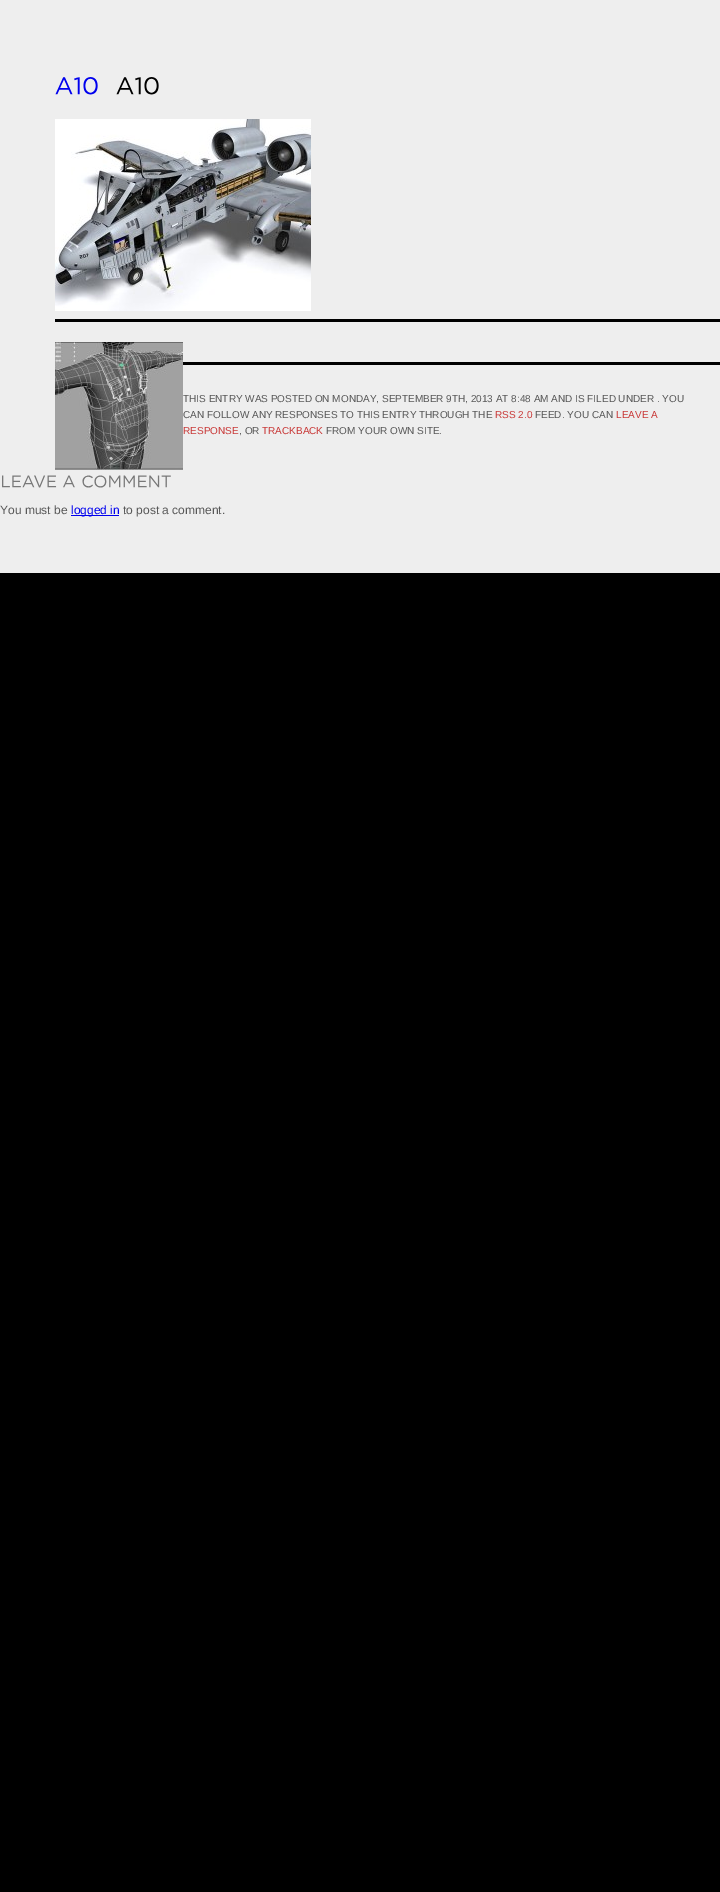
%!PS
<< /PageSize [720 1892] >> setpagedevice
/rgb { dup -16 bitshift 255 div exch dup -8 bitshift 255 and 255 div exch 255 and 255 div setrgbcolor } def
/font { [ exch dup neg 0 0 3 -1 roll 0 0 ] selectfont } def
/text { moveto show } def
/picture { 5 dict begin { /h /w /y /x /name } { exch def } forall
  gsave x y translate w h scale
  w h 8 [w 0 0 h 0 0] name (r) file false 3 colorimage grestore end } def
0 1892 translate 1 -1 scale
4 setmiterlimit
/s1 { /LiberationSans-Regular 10 font 16#585858 rgb } def
/s2 { /LiberationSans-Regular 10 font 16#C93837 rgb } def
/s3 { /LiberationSans-Regular 12 font 16#585858 rgb } def
/s4 { /LiberationSans-Regular 12 font 16#0000EE rgb } def
16#000000 rgb
0 0 720 1892 rectfill
16#EEEEEE rgb
0 0 720 573 rectfill
(pic1.raw) 55 77 43 18 picture
(pic2.raw) 116 77 43 18 picture
(pic3.raw) 55 119 256 192 picture
16#000000 rgb
55 319 665 3 rectfill
183 362 537 3 rectfill
(pic4.raw) 55 342 128 128 picture
s1
(THIS ENTRY WAS POSTED ON MONDAY, SEPTEMBER 9TH, 2013 AT 8:48 AM AND IS FILED UNDER . YOU) 183 402 text
(CAN FOLLOW ANY RESPONSES TO THIS ENTRY THROUGH THE) 183 418 text
s2
(RSS 2.0) 495 418 text
s1
(FEED. YOU CAN) 535 418 text
s2
(LEAVE A) 616 418 text
(RESPONSE) 183 434 text
s1
(, OR) 239 434 text
s2
(TRACKBACK) 262 434 text
s1
(FROM YOUR OWN SITE.) 326 434 text
(pic5.raw) 2 475 55 13 picture
(pic6.raw) 63 475 12 13 picture
(pic7.raw) 82 475 89 13 picture
s3
(You must be) 0 514 text
16#0000EE rgb
71 515 48 1 rectfill
(logged in) 71 514 text
s3
(to post a comment.) 123 514 text
showpage
